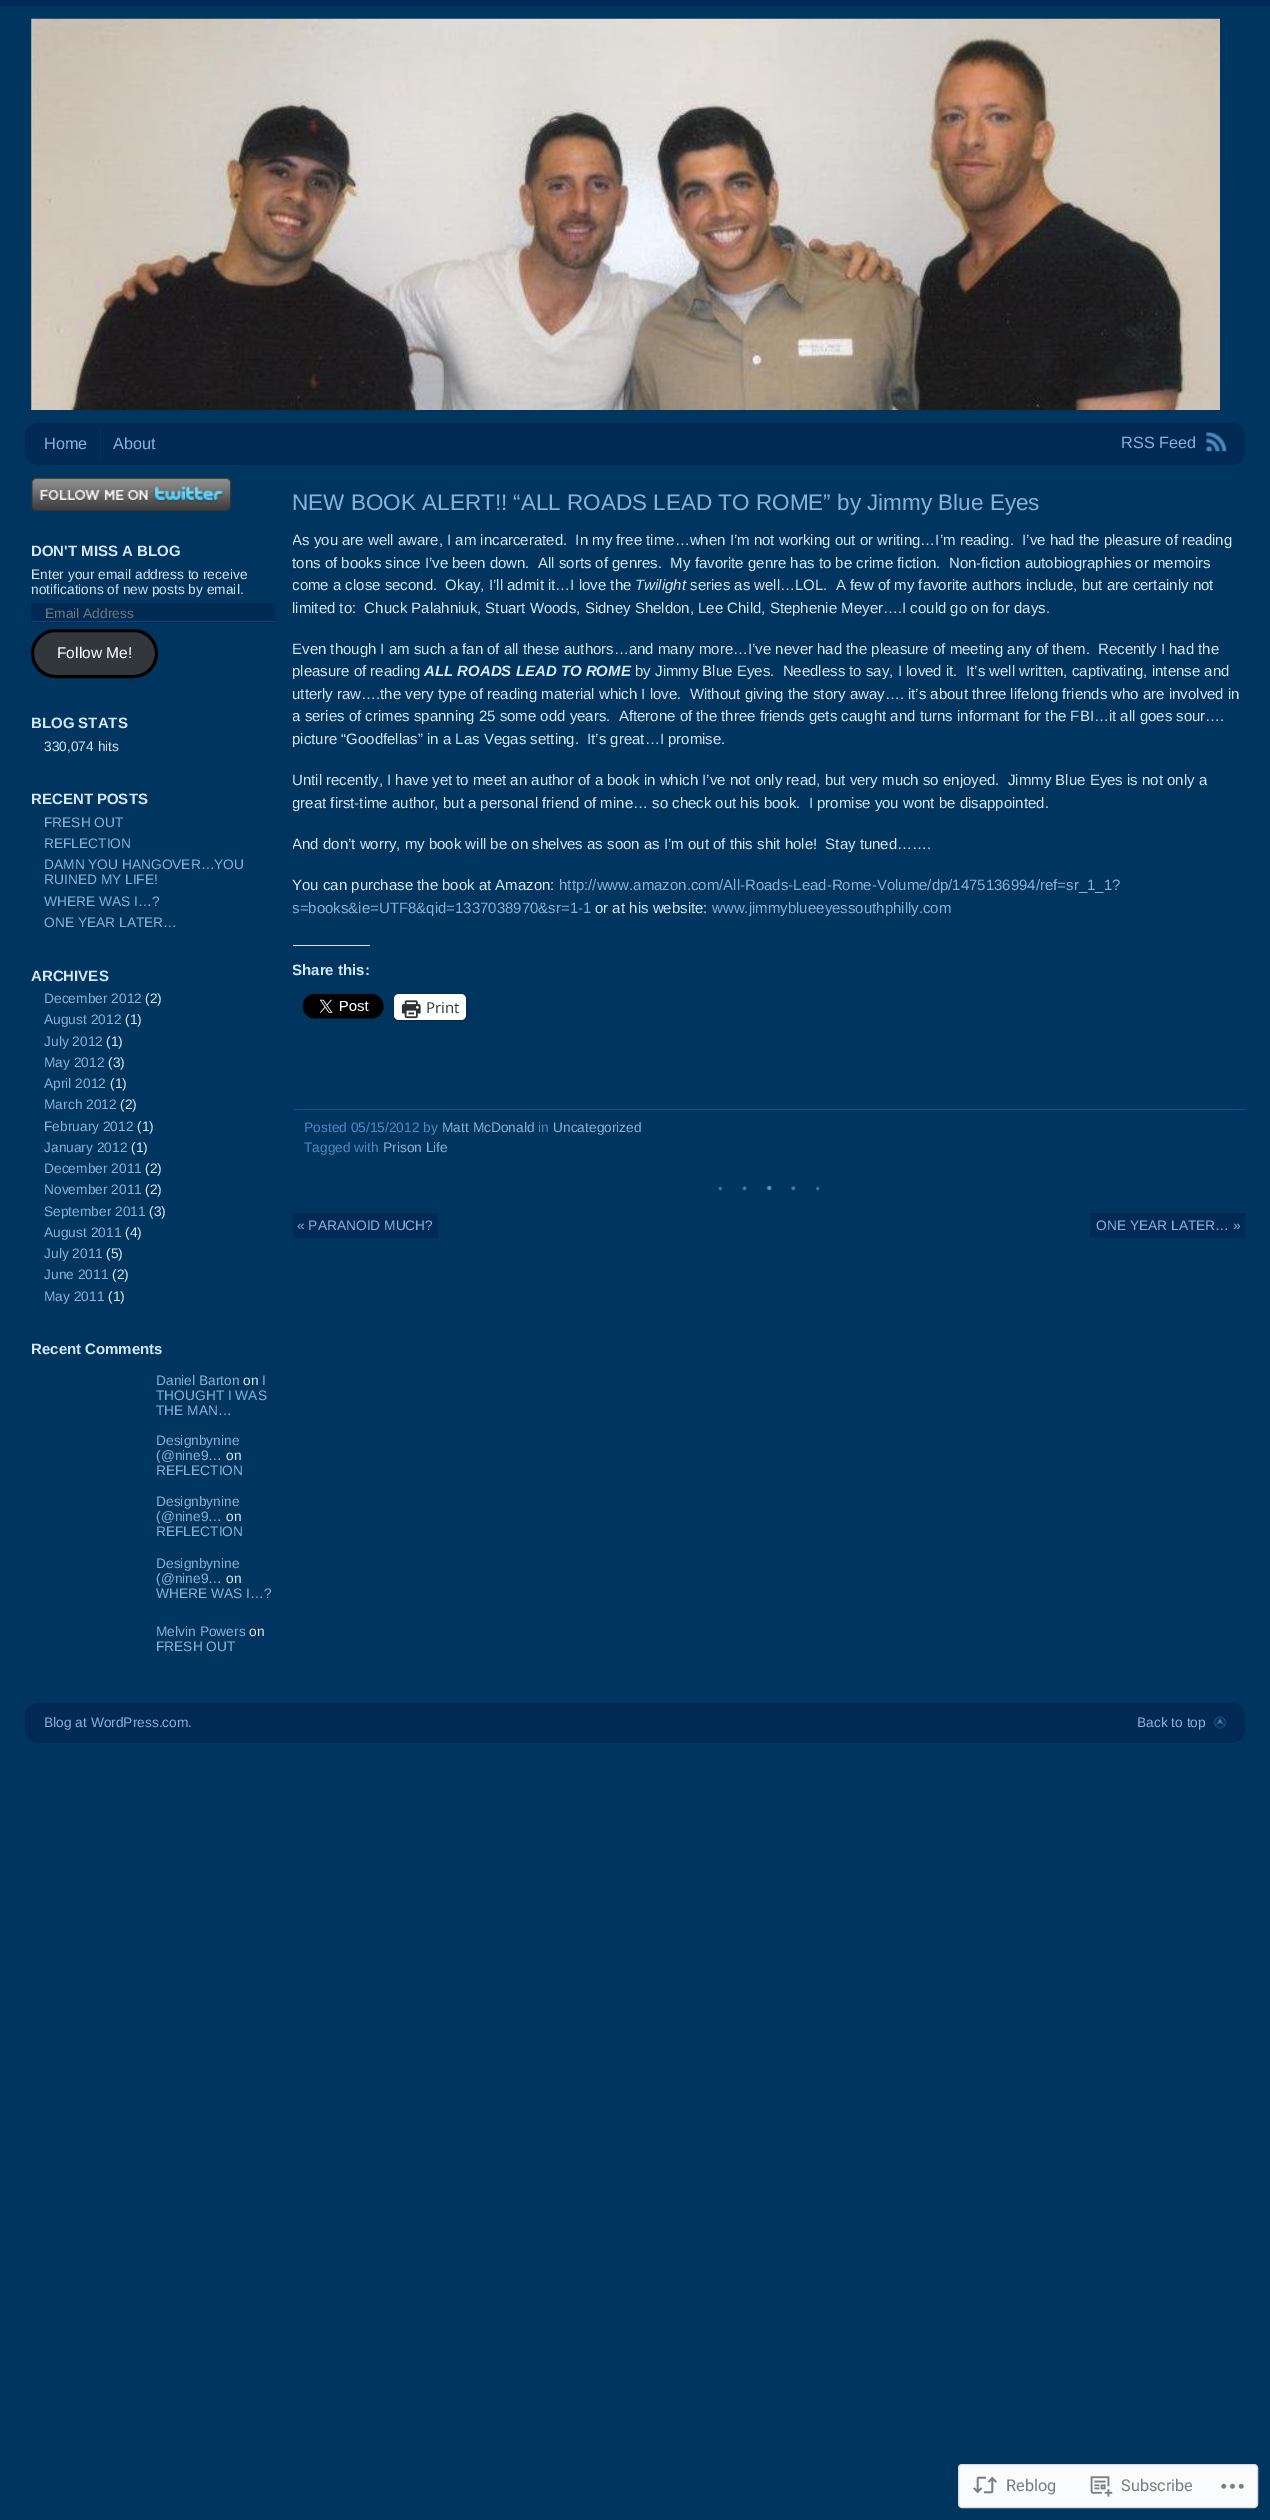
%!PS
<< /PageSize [1270 2520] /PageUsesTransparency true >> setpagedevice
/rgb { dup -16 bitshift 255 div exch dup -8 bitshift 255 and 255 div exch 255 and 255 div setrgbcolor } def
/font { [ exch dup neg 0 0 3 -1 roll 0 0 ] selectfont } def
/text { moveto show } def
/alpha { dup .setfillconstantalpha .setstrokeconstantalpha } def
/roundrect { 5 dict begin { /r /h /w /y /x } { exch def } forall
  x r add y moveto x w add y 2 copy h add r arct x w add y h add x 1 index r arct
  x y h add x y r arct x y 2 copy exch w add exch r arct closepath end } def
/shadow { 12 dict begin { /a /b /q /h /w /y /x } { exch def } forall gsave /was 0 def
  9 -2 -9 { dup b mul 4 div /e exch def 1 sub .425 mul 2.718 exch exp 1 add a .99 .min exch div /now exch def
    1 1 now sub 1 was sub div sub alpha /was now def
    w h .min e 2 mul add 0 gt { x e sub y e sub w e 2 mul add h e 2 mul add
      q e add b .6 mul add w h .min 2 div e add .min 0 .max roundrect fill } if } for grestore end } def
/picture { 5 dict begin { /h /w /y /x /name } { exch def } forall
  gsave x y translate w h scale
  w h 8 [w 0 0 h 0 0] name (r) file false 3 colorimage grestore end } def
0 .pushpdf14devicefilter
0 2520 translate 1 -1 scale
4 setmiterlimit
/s1 { /LiberationSans-Regular 16.25 font 16#87B2D8 rgb } def
/s2 { /LiberationSans-Bold 15 font 16#D4E7F7 rgb } def
/s3 { /LiberationSans-Regular 13.75 font 16#D4E7F7 rgb } def
/s4 { /LiberationSans-Regular 13.75 font 16#757575 rgb } def
/s5 { /LiberationSans-Regular 15.5 font 16#FFFFFF rgb } def
/s6 { /LiberationSans-Regular 13.75 font 16#87B2D8 rgb } def
/s7 { /LiberationSans-Regular 22.5 font 16#87B2D8 rgb } def
/s8 { /LiberationSans-Regular 15 font 16#D4E7F7 rgb } def
/s9 { /LiberationSans-Italic 15 font 16#D4E7F7 rgb } def
/s10 { /LiberationSans-BoldItalic 15 font 16#D4E7F7 rgb } def
/s11 { /LiberationSans-Regular 15 font 16#87B2D8 rgb } def
/s12 { /OpenSans-Regular 15 font 16#2C3338 rgb } def
/s13 { /LiberationSans-Regular 13.75 font 16#4E8ABE rgb } def
/s14 { /Roboto-Regular 16.25 font 16#767B81 rgb } def
16#00355F rgb
0 0 1270 2520 rectfill
16#002A53 rgb
0 0 1270 6 rectfill
(pic1.raw) 31 18 1189 392 picture
25 423 1220 42 13 roundrect fill
16#00355F rgb
100 429 1 30 rectfill
s1
(Home) 44 449 text
(About) 113 449 text
(RSS Feed) 1121 448 text
(pic2.raw) 1206 432 21 20 picture
(pic3.raw) 31 477 201 35 picture
s2
(DON'T MISS A BLOG) 31 556 text
s3
(Enter your email address to receive) 31 579 text
(notifications of new posts by email.) 31 594 text
16#002A53 rgb
32 604 243 19 rectfill
16#01284E rgb
31 603 244 1 rectfill
16#004B8D rgb
31 621 244 1 rectfill
16#01284E rgb
31 603 1 20 rectfill
s4
(Email Address) 45 618 text
16#32373C rgb
32.5 630.5 124 46 23 roundrect gsave fill grestore
16#000000 rgb
3 setlinewidth
stroke
s5
(Follow Me!) 57 658 text
s2
(BLOG STATS) 31 728 text
s3
(330,074 hits) 44 751 text
s2
(RECENT POSTS) 31 804 text
s6
(FRESH OUT) 44 827 text
(REFLECTION) 44 848 text
(DAMN YOU HANGOVER…YOU) 44 869 text
(RUINED MY LIFE!) 44 884 text
(WHERE WAS I…?) 44 906 text
(ONE YEAR LATER…) 44 927 text
s2
(ARCHIVES) 31 981 text
s6
(December 2012) 44 1003 text
s3
(\(2\)) 145 1003 text
s6
(August 2012) 44 1024 text
s3
(\(1\)) 125 1024 text
s6
(July 2012) 44 1046 text
s3
(\(1\)) 106 1046 text
s6
(May 2012) 44 1067 text
s3
(\(3\)) 108 1067 text
s6
(April 2012) 44 1088 text
s3
(\(1\)) 110 1088 text
s6
(March 2012) 44 1109 text
s3
(\(2\)) 120 1109 text
s6
(February 2012) 44 1131 text
s3
(\(1\)) 137 1131 text
s6
(January 2012) 44 1152 text
s3
(\(1\)) 131 1152 text
s6
(December 2011) 44 1173 text
s3
(\(2\)) 145 1173 text
s6
(November 2011) 44 1194 text
s3
(\(2\)) 145 1194 text
s6
(September 2011) 44 1216 text
s3
(\(3\)) 149 1216 text
s6
(August 2011) 44 1237 text
s3
(\(4\)) 125 1237 text
s6
(July 2011) 44 1258 text
s3
(\(5\)) 106 1258 text
s6
(June 2011) 44 1279 text
s3
(\(2\)) 112 1279 text
s6
(May 2011) 44 1301 text
s3
(\(1\)) 108 1301 text
s2
(Recent Comments) 31 1354 text
s6
(Daniel Barton) 156 1385 text
s3
(on) 243 1385 text
s6
(I) 262 1385 text
(THOUGHT I WAS) 156 1400 text
(THE MAN…) 156 1415 text
(Designbynine) 156 1445 text
(\(@nine9…) 156 1460 text
s3
(on) 226 1460 text
s6
(REFLECTION) 156 1475 text
(Designbynine) 156 1506 text
(\(@nine9…) 156 1521 text
s3
(on) 226 1521 text
s6
(REFLECTION) 156 1536 text
(Designbynine) 156 1568 text
(\(@nine9…) 156 1583 text
s3
(on) 226 1583 text
s6
(WHERE WAS I…?) 156 1598 text
(Melvin Powers) 156 1636 text
s3
(on) 249 1636 text
s6
(FRESH OUT) 156 1651 text
s7
(NEW BOOK ALERT!! “ALL ROADS LEAD TO ROME” by Jimmy Blue Eyes) 292 510 text
gsave
293 529 952 580 rectclip
s8
(As you are well aware, I am incarcerated.  In my free time…when I’m not working out or writing…I’m reading.  I’ve had the pleasure of reading) 292 545 text
grestore
s8
(tons of books since I’ve been down.  All sorts of genres.  My favorite genre has to be crime fiction.  Non-fiction autobiographies or memoirs) 292 568 text
gsave
293 529 952 580 rectclip
(come a close second.  Okay, I’ll admit it…I love the) 292 590 text
grestore
s9
(Twilight) 635 590 text
s8
(series as well…LOL.  A few of my favorite authors include, but are certainly not) 690 590 text
gsave
293 529 952 580 rectclip
(limited to:  Chuck Palahniuk, Stuart Woods, Sidney Sheldon, Lee Child, Stephenie Meyer….I could go on for days.) 292 613 text
grestore
(Even though I am such a fan of all these authors…and many more…I’ve never had the pleasure of meeting any of them.  Recently I had the) 292 654 text
gsave
293 529 952 580 rectclip
(pleasure of reading) 292 676 text
grestore
s10
(ALL ROADS LEAD TO ROME) 424 676 text
s8
(by Jimmy Blue Eyes.  Needless to say, I loved it.  It’s well written, captivating, intense and) 635 676 text
gsave
293 529 952 580 rectclip
(utterly raw….the very type of reading material which I love.  Without giving the story away…. it’s about three lifelong friends who are involved in) 292 699 text
(a series of crimes spanning 25 some odd years.  Afterone of the three friends gets caught and turns informant for the FBI…it all goes sour….) 292 721 text
(picture “Goodfellas” in a Las Vegas setting.  It’s great…I promise.) 292 744 text
grestore
(Until recently, I have yet to meet an author of a book in which I’ve not only read, but very much so enjoyed.  Jimmy Blue Eyes is not only a) 292 785 text
gsave
293 529 952 580 rectclip
(great first-time author, but a personal friend of mine… so check out his book.  I promise you wont be disappointed.) 292 808 text
(And don’t worry, my book will be on shelves as soon as I’m out of this shit hole!  Stay tuned…….) 292 849 text
grestore
(You can purchase the book at Amazon:) 292 890 text
s11
(http://www.amazon.com/All-Roads-Lead-Rome-Volume/dp/1475136994/ref=sr_1_1?) 559 890 text
gsave
293 529 952 580 rectclip
(s=books&ie=UTF8&qid=1337038970&sr=1-1) 292 913 text
grestore
s8
(or at his website:) 595 913 text
s11
(www.jimmyblueeyessouthphilly.com) 712 913 text
16#DCDCDE rgb
293 945 77 1 rectfill
gsave
293 529 952 580 rectclip
s2
(Share this:) 292 975 text
grestore
(pic4.raw) 302 993 82 26 picture
16#002F54 rgb
1 setlinewidth
393.5 993.5 74 27 5.5 roundrect stroke
16#000000 rgb
394 995 72 26 5 1 0.12 shadow
16#FFFFFF rgb
394 994 72 26 5 roundrect fill
(pic5.raw) 401 1000 20 19 picture
s12
(Print) 426 1013 text
(pic6.raw) 718 1185 102 6 picture
16#005595 rgb
293 1109 952 1 rectfill
s13
(Posted 05/15/2012 by) 304 1132 text
s6
(Matt McDonald) 442 1132 text
s13
(in) 538 1132 text
s6
(Uncategorized) 553 1132 text
s13
(Tagged with) 304 1152 text
s6
(Prison Life) 383 1152 text
16#002A53 rgb
293 1213 145 25 rectfill
s6
(« PARANOID MUCH?) 297 1230 text
16#002A53 rgb
1090 1213 155 25 rectfill
s6
(ONE YEAR LATER… ») 1096 1230 text
16#002A53 rgb
25 1703 1220 40 13 roundrect fill
s6
(Blog at WordPress.com.) 44 1727 text
(Back to top) 1137 1727 text
(pic7.raw) 1213 1716 14 13 picture
16#FAFBFC rgb
958.5 2464.5 299 43 3.5 roundrect gsave fill grestore
16#D8D9DB rgb
stroke
(pic8.raw) 973 2476 24 18 picture
s14
(Reblog) 1006 2491 text
(pic9.raw) 1090 2476 23 21 picture
(Subscribe) 1121 2491 text
(pic10.raw) 1221 2483 23 6 picture
.poppdf14devicefilter showpage
